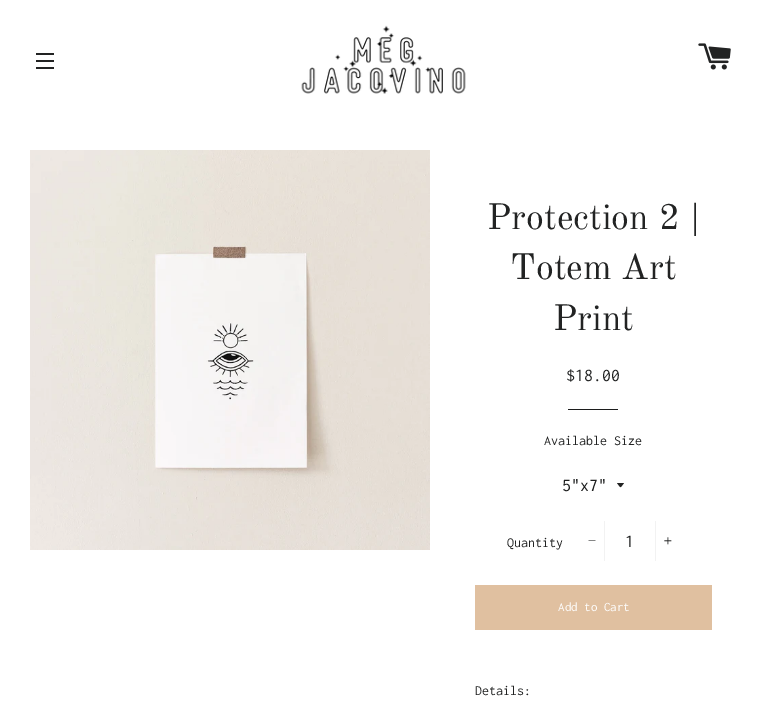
%!PS
<< /PageSize [767 710] >> setpagedevice
/rgb { dup -16 bitshift 255 div exch dup -8 bitshift 255 and 255 div exch 255 and 255 div setrgbcolor } def
/font { [ exch dup neg 0 0 3 -1 roll 0 0 ] selectfont } def
/text { moveto show } def
/picture { 5 dict begin { /h /w /y /x /name } { exch def } forall
  gsave x y translate w h scale
  w h 8 [w 0 0 h 0 0] name (r) file false 3 colorimage grestore end } def
0 710 translate 1 -1 scale
4 setmiterlimit
/s1 { /OldStandardTT-Regular 36 font 16#222323 rgb } def
/s2 { /Inconsolata-Regular 18 font 16#222323 rgb } def
/s3 { /Inconsolata-Regular 14 font 16#222323 rgb } def
/s4 { /Inconsolata-Regular 18 font 16#1C1D1D rgb } def
/s5 { /Inconsolata-Regular 13 font 16#FFFFFF rgb } def
16#FFFFFF rgb
0 0 767 710 rectfill
16#222323 rgb
36 53 18 2 rectfill
36 60 18 2 rectfill
36 67 18 2 rectfill
(pic1.raw) 301 25 165 69 picture
(pic2.raw) 698 43 33 27 picture
(pic3.raw) 30 150 400 400 picture
s1
(Protection 2 |) 487 229 text
(Totem Art) 510 279 text
(Print) 553 330 text
s2
($18.00) 566 381 text
16#1C1D1D rgb
568 409 50 1 rectfill
s3
(Available Size) 544 445 text
617 483 moveto 621.5 488.5 619.5 488.5 624 483 curveto closepath fill
s4
(5"x7") 562 491 text
s3
(Quantity) 507 547 text
16#F2F2F2 rgb
604 521 1 40 rectfill
16#1C1D1D rgb
588.5 540.5 moveto 595.5 540.5 lineto 595.5 541 lineto 588.5 541 lineto closepath fill
s4
(1) 625 547 text
16#F2F2F2 rgb
655 521 1 40 rectfill
(pic4.raw) 664 537 8 8 picture
16#E0C0A0 rgb
475 585 237 45 rectfill
s5
(Add to Cart) 558 611 text
s3
(Details:) 475 695 text
showpage
